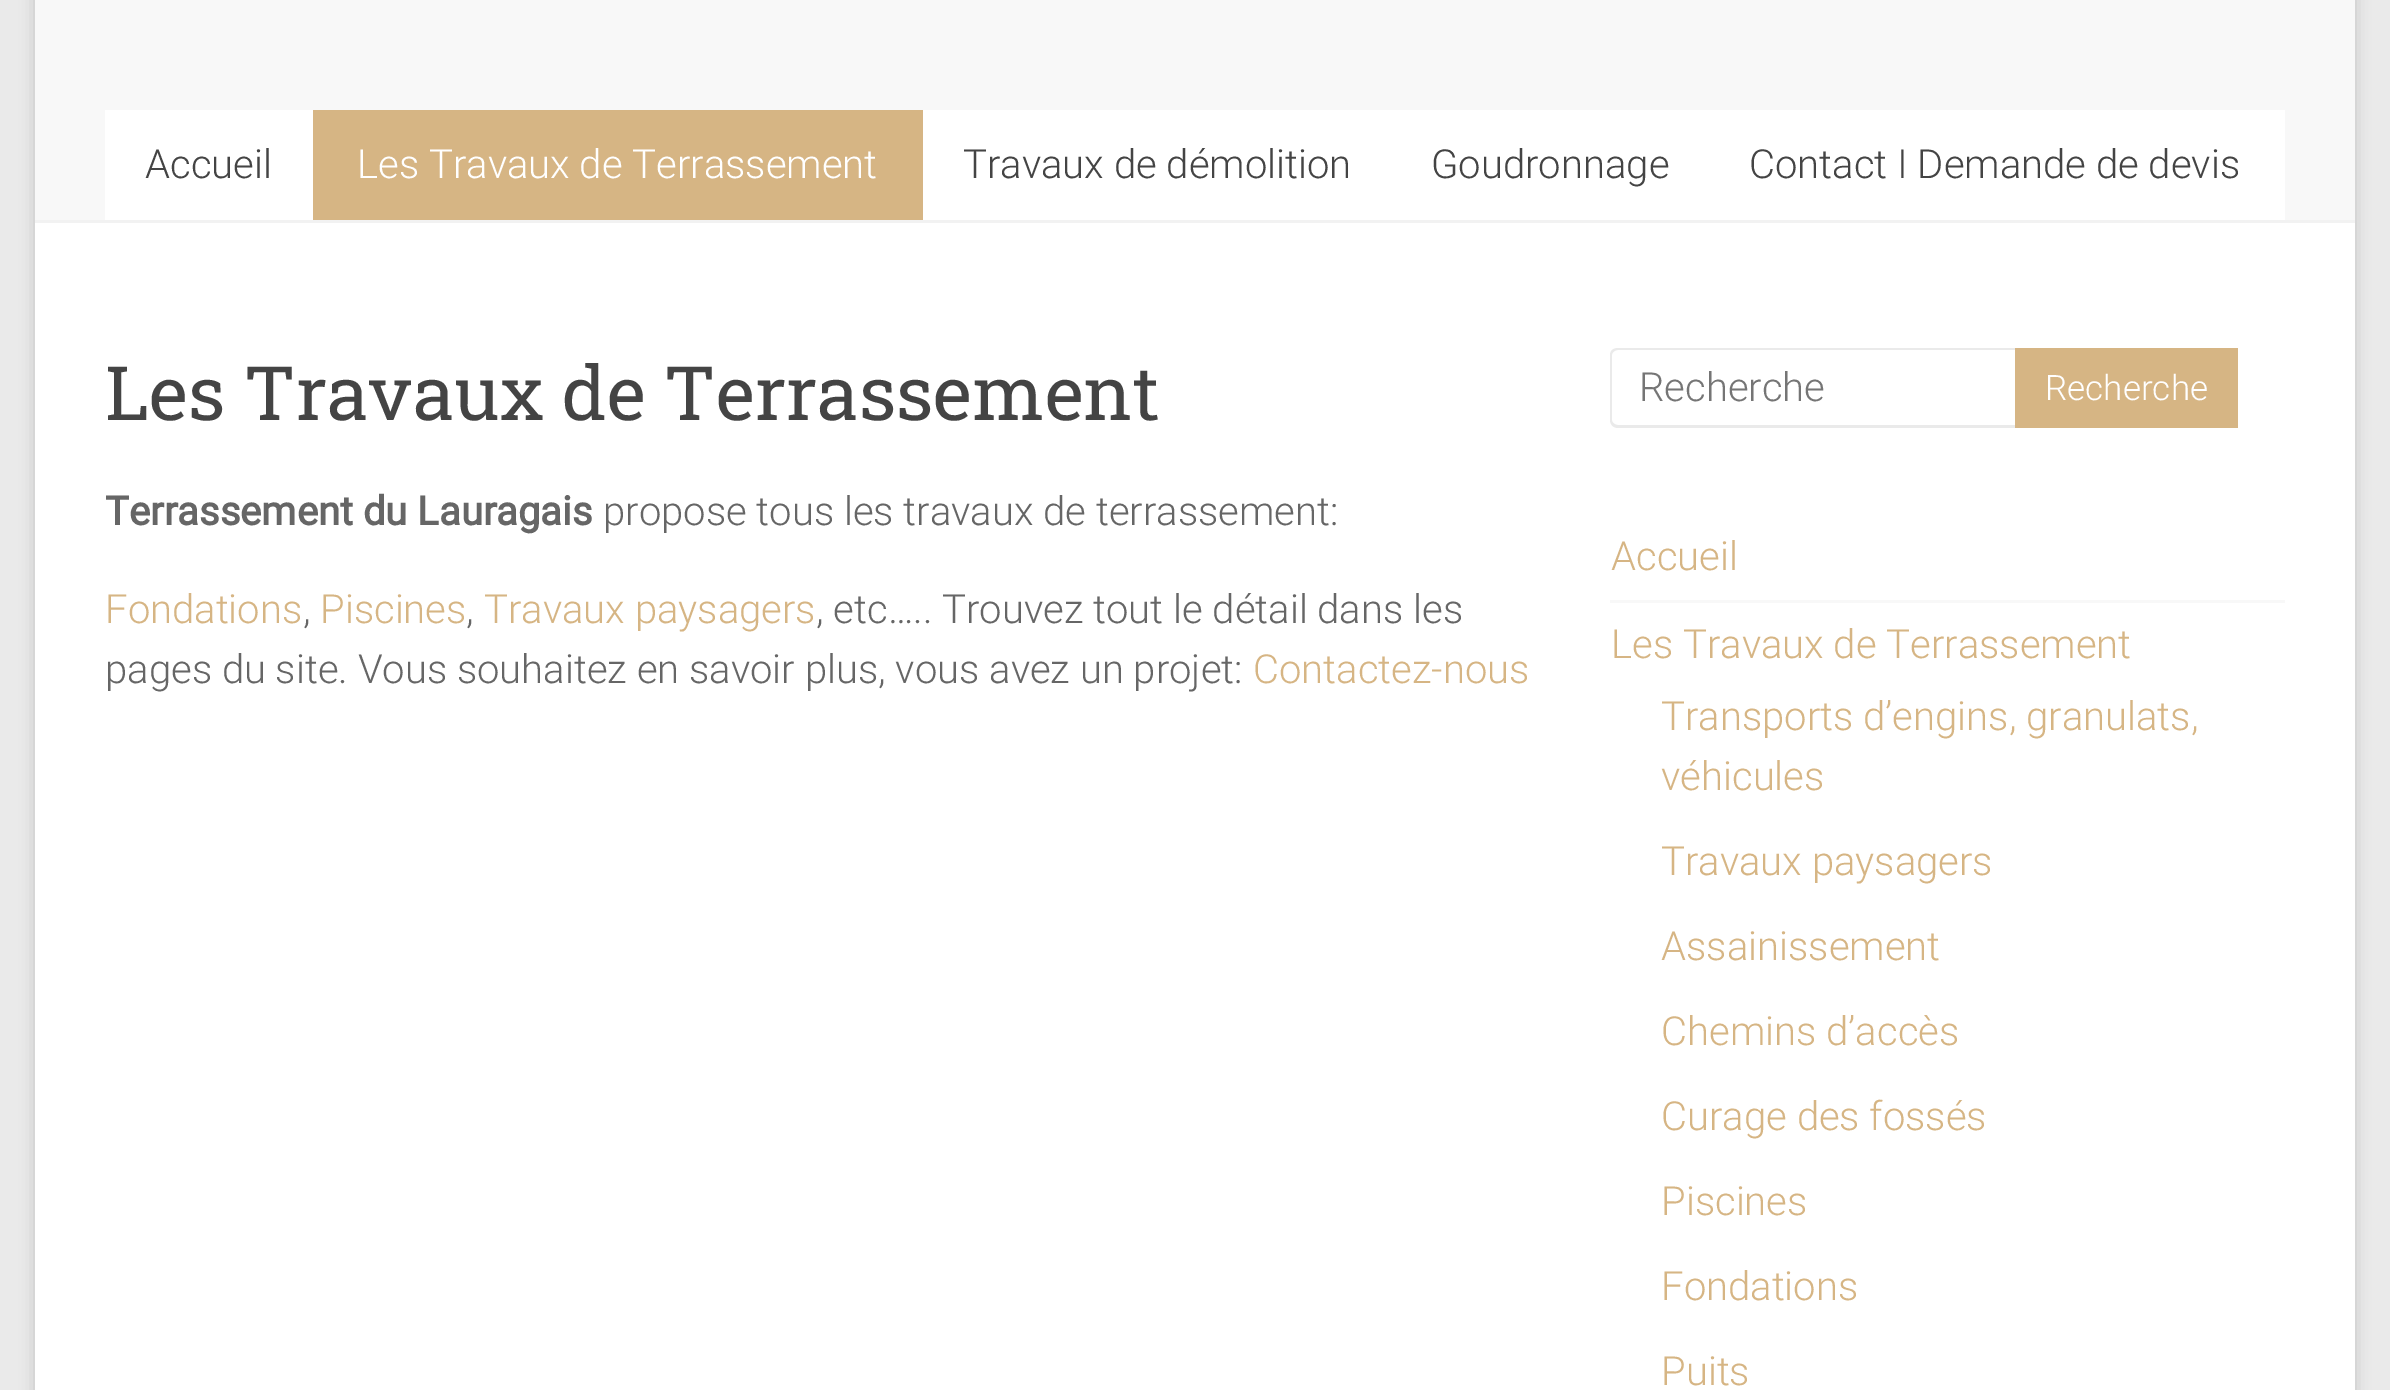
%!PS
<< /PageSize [2390 1390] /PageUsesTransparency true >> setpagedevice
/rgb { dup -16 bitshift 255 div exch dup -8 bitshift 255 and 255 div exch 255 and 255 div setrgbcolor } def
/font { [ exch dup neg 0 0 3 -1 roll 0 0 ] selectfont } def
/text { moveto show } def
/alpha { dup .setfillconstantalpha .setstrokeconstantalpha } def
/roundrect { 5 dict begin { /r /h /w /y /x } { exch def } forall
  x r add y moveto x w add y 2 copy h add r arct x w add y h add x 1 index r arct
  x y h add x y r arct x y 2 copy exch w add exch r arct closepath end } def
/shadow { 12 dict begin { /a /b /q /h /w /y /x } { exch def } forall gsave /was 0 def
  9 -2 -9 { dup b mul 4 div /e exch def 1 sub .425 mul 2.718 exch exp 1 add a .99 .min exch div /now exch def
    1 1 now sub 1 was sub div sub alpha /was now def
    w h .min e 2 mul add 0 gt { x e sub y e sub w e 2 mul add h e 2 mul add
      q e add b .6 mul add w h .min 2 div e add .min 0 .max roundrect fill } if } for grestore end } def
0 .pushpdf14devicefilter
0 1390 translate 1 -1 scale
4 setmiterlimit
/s1 { /Roboto-Light 40 font 16#444444 rgb } def
/s2 { /Roboto-Light 40 font 16#FFFFFF rgb } def
/s3 { /RobotoSlab-Regular 75 font 16#444444 rgb } def
/s4 { /Roboto-Bold 40 font 16#666666 rgb } def
/s5 { /Roboto-Light 40 font 16#666666 rgb } def
/s6 { /Roboto-Light 40 font 16#D6B584 rgb } def
/s7 { /Roboto-Light 40 font 16#757575 rgb } def
/s8 { /Roboto-Light 35 font 16#FFFFFF rgb } def
16#EAEAEA rgb
0 0 2390 1390 rectfill
16#646464 rgb
35 -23 2320 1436 0 7.5 0.3 shadow
16#FFFFFF rgb
35 223 2320 1167 rectfill
16#F8F8F8 rgb
35 0 2320 220 rectfill
16#F2F2F2 rgb
35 220 2320 3 rectfill
16#FFFFFF rgb
105 110 2180 110 rectfill
s1
(Accueil) 145 178 text
16#D6B584 rgb
313 110 610 110 rectfill
s2
(Les Travaux de Terrassement) 357 178 text
s1
(Travaux de démolition) 963 178 text
(Goudronnage) 1431 178 text
(Contact I Demande de devis) 1749 178 text
s3
(Les Travaux de Terrassement) 105 420 text
s4
(Terrassement du Lauragais) 105 525 text
s5
(propose tous les travaux de terrassement:) 603 525 text
s6
(Fondations) 105 623 text
s5
(,) 303 623 text
s6
(Piscines) 320 623 text
s5
(,) 466 623 text
s6
(Travaux paysagers) 484 623 text
s5
(, etc….. Trouvez tout le détail dans les) 816 623 text
(pages du site. Vous souhaitez en savoir plus, vous avez un projet:) 105 683 text
s6
(Contactez-nous) 1253 683 text
16#EAEAEA rgb
1618 348 moveto 2015 348 lineto 2015 428 lineto 1618 428 lineto 1613 428 1610 424 1610 420 curveto 1610 355 lineto 1610 351 1613 348 1618 348 curveto closepath 1618 350 moveto 2015 350 lineto 2015 425 lineto 1618 425 lineto 1615 425 1612 423 1612 420 curveto 1612 355 lineto 1612 352 1615 350 1618 350 curveto closepath eofill
s7
(Recherche) 1639 401 text
16#D6B584 rgb
2015 348 223 80 rectfill
s8
(Recherche) 2045 400 text
16#F8F8F8 rgb
1610 600 675 3 rectfill
s6
(Accueil) 1611 570 text
(Les Travaux de Terrassement) 1611 658 text
(Transports d’engins, granulats,) 1661 730 text
(véhicules) 1661 790 text
(Travaux paysagers) 1661 875 text
(Assainissement) 1661 960 text
(Chemins d’accès) 1661 1045 text
(Curage des fossés) 1661 1130 text
(Piscines) 1661 1215 text
(Fondations) 1661 1300 text
(Puits) 1661 1385 text
.poppdf14devicefilter showpage
